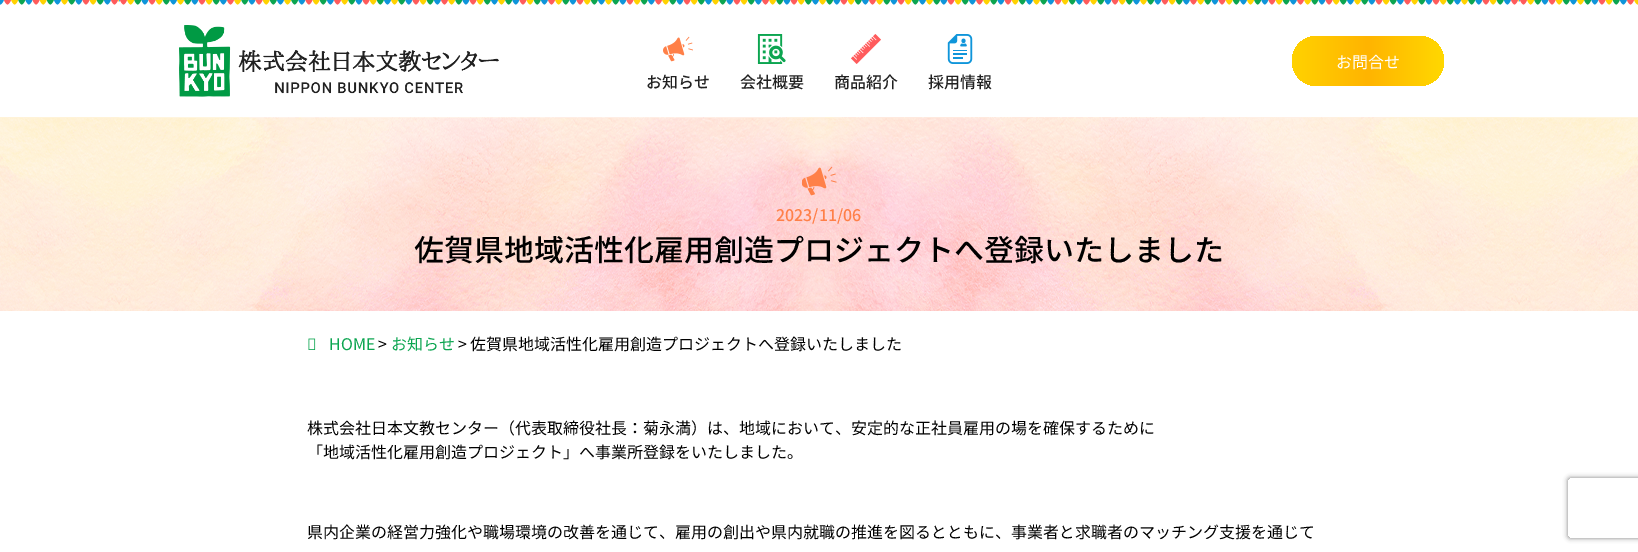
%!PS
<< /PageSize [1638 552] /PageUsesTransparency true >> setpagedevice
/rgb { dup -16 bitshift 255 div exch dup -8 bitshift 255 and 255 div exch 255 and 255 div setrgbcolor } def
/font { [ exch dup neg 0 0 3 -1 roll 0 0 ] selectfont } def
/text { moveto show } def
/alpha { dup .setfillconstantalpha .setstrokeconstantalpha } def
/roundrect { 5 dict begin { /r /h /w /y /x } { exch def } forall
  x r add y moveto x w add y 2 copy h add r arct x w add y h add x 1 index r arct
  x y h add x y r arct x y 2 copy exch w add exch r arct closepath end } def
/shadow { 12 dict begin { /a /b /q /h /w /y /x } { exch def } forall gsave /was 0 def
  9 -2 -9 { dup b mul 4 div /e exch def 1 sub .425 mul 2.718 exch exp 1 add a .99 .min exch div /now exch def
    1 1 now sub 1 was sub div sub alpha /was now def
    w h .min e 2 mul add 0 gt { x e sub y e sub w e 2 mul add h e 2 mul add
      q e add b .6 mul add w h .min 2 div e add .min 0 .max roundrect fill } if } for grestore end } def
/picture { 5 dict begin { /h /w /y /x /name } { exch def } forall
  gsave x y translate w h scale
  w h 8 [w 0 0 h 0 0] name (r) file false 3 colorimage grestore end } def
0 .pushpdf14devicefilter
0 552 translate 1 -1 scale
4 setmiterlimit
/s1 { /NotoSansJP-Regular 16 font 16#FFFFFF rgb } def
/s2 { /NotoSansJP-Medium 16 font 16#212121 rgb } def
/s3 { /NotoSansJP-Medium 16 font 16#FF8048 rgb } def
/s4 { /NotoSansJP-Medium 30 font 16#000000 rgb } def
/s5 { /NotoSansJP-Regular 16 font 16#0CA550 rgb } def
/s6 { /NotoSansJP-Regular 16 font 16#000000 rgb } def
16#FFFFFF rgb
0 0 1638 552 rectfill
(pic1.raw) 0 0 1638 5 picture
(pic2.raw) 179 25 320 72 picture
gsave 1292 36 152 50 25 roundrect clip newpath
<< /ShadingType 2 /ColorSpace /DeviceRGB /Coords [1292 61 1444 61] /Extend [true true] /Function << /FunctionType 3 /Domain [0 1] /Functions [<< /FunctionType 2 /Domain [0 1] /C0 [1 0.824 0] /C1 [1 0.706 0] /N 1 >> << /FunctionType 2 /Domain [0 1] /C0 [1 0.706 0] /C1 [1 0.847 0] /N 1 >>] /Bounds [0.5] /Encode [0 1 0 1] >> >> shfill grestore
s1
(お問合せ) 1336 68 text
(pic3.raw) 663 36 30 26 picture
s2
(お知らせ) 646 88 text
(pic4.raw) 757 34 29 30 picture
(会社概要) 740 88 text
(pic5.raw) 851 34 30 30 picture
(商品紹介) 834 88 text
(pic6.raw) 947 34 26 30 picture
(採用情報) 928 88 text
(pic7.raw) 0 117 1638 194 picture
(pic8.raw) 802 166 35 30 picture
s3
(2023/11/06) 776 221 text
s4
(佐賀県地域活性化雇用創造プロジェクトへ登録いたしました) 414 261 text
(pic9.raw) 308 338 8 12 picture
s5
(HOME) 329 350 text
s6
(>) 378 350 text
s5
(お知らせ) 391 350 text
s6
(> 佐賀県地域活性化雇用創造プロジェクトへ登録いたしました) 458 350 text
(株式会社日本文教センター（代表取締役社長：菊永満）は、地域において、安定的な正社員雇用の場を確保するために) 307 434 text
(「地域活性化雇用創造プロジェクト」へ事業所登録をいたしました。) 307 458 text
(県内企業の経営力強化や職場環境の改善を通じて、雇用の創出や県内就職の推進を図るとともに、事業者と求職者のマッチング支援を通じて) 307 538 text
gsave
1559 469 moveto 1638 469 lineto 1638 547 lineto 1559 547 lineto closepath 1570 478 moveto 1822 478 lineto 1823 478 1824 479 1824 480 curveto 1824 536 lineto 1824 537 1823 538 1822 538 curveto 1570 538 lineto 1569 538 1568 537 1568 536 curveto 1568 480 lineto 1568 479 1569 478 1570 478 curveto closepath eoclip newpath
16#808080 rgb
1568 478 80 60 2 2.5 1 shadow
grestore
.poppdf14devicefilter showpage
